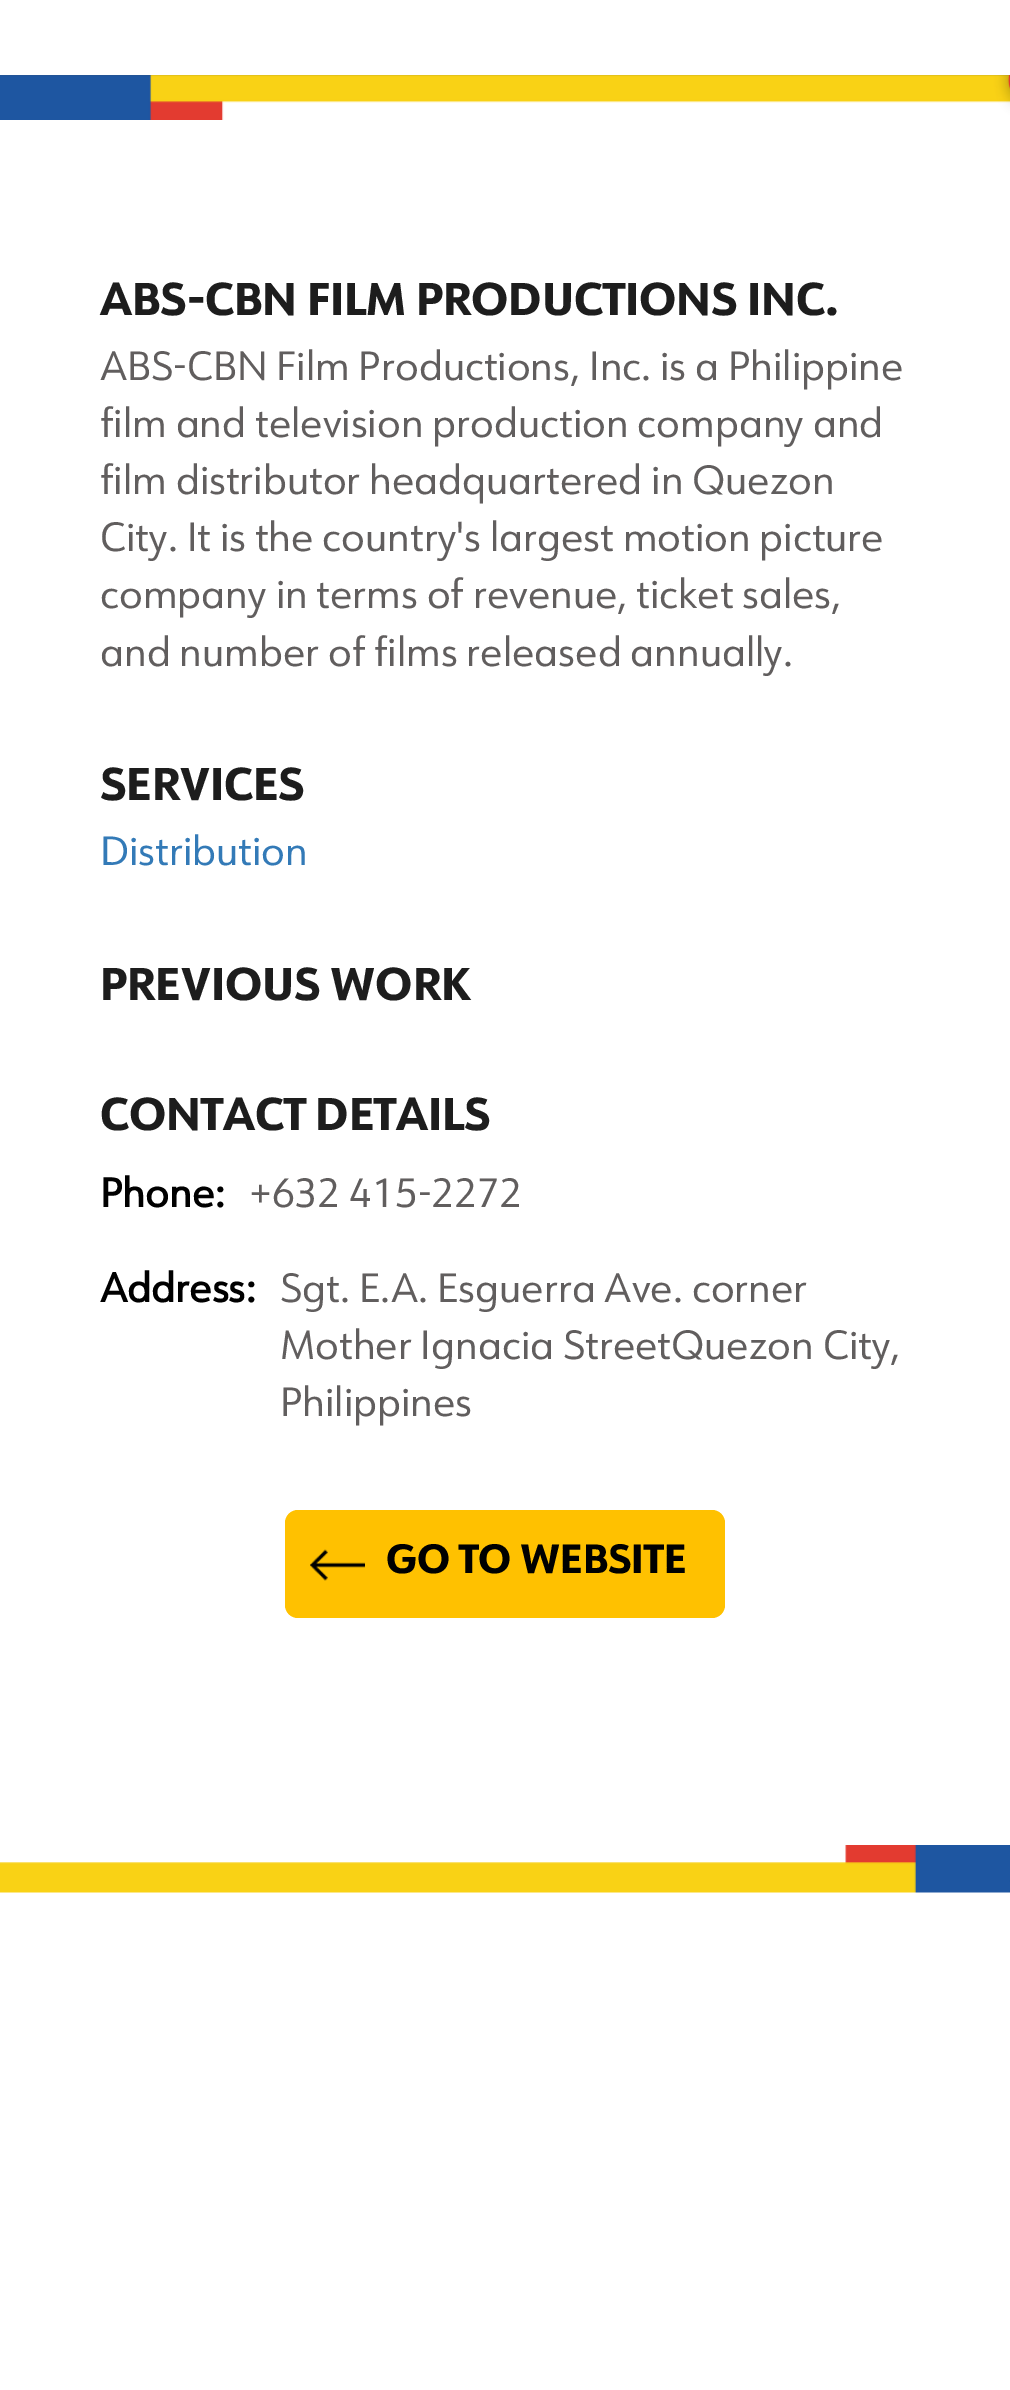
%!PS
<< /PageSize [1010 2390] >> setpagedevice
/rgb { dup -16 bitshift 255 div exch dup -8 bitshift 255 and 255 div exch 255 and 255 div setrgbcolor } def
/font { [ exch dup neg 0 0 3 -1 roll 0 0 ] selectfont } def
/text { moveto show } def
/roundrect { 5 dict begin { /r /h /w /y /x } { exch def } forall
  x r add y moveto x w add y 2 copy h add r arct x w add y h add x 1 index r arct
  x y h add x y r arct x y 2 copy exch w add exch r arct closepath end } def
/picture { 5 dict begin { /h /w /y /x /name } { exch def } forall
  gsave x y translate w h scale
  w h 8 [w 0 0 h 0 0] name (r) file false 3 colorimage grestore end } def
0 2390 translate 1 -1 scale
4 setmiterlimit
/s1 { /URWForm-ExtraBold 45 font 16#1D1D1D rgb } def
/s2 { /URWForm-Regular 40 font 16#615E5E rgb } def
/s3 { /URWForm-Regular 40 font 16#337AB7 rgb } def
/s4 { /URWForm-Bold 40 font 16#000000 rgb } def
/s5 { /URWForm-ExtraBold 40 font 16#000000 rgb } def
16#FFFFFF rgb
0 0 1010 2390 rectfill
(pic1.raw) 0 75 1010 45 picture
s1
(ABS-CBN FILM PRODUCTIONS INC.) 100 315 text
s2
(ABS-CBN Film Productions, Inc. is a Philippine) 100 380 text
(film and television production company and) 100 437 text
(film distributor headquartered in Quezon) 100 494 text
(City. It is the country's largest motion picture) 100 551 text
(company in terms of revenue, ticket sales,) 100 608 text
(and number of films released annually.) 100 666 text
s1
(SERVICES) 100 800 text
s3
(Distribution) 100 865 text
s1
(PREVIOUS WORK) 100 1000 text
(CONTACT DETAILS) 100 1130 text
s4
(Phone:) 100 1207 text
s2
(+632 415-2272) 249 1207 text
s4
(Address:) 100 1302 text
s2
(Sgt. E.A. Esguerra Ave. corner) 280 1302 text
(Mother Ignacia StreetQuezon City,) 280 1359 text
(Philippines) 280 1416 text
16#FFC100 rgb
285 1510 440 108 13 roundrect fill
(pic2.raw) 310 1549 55 32 picture
s5
(GO TO WEBSITE) 386 1573 text
(pic3.raw) 0 1845 1010 48 picture
showpage
